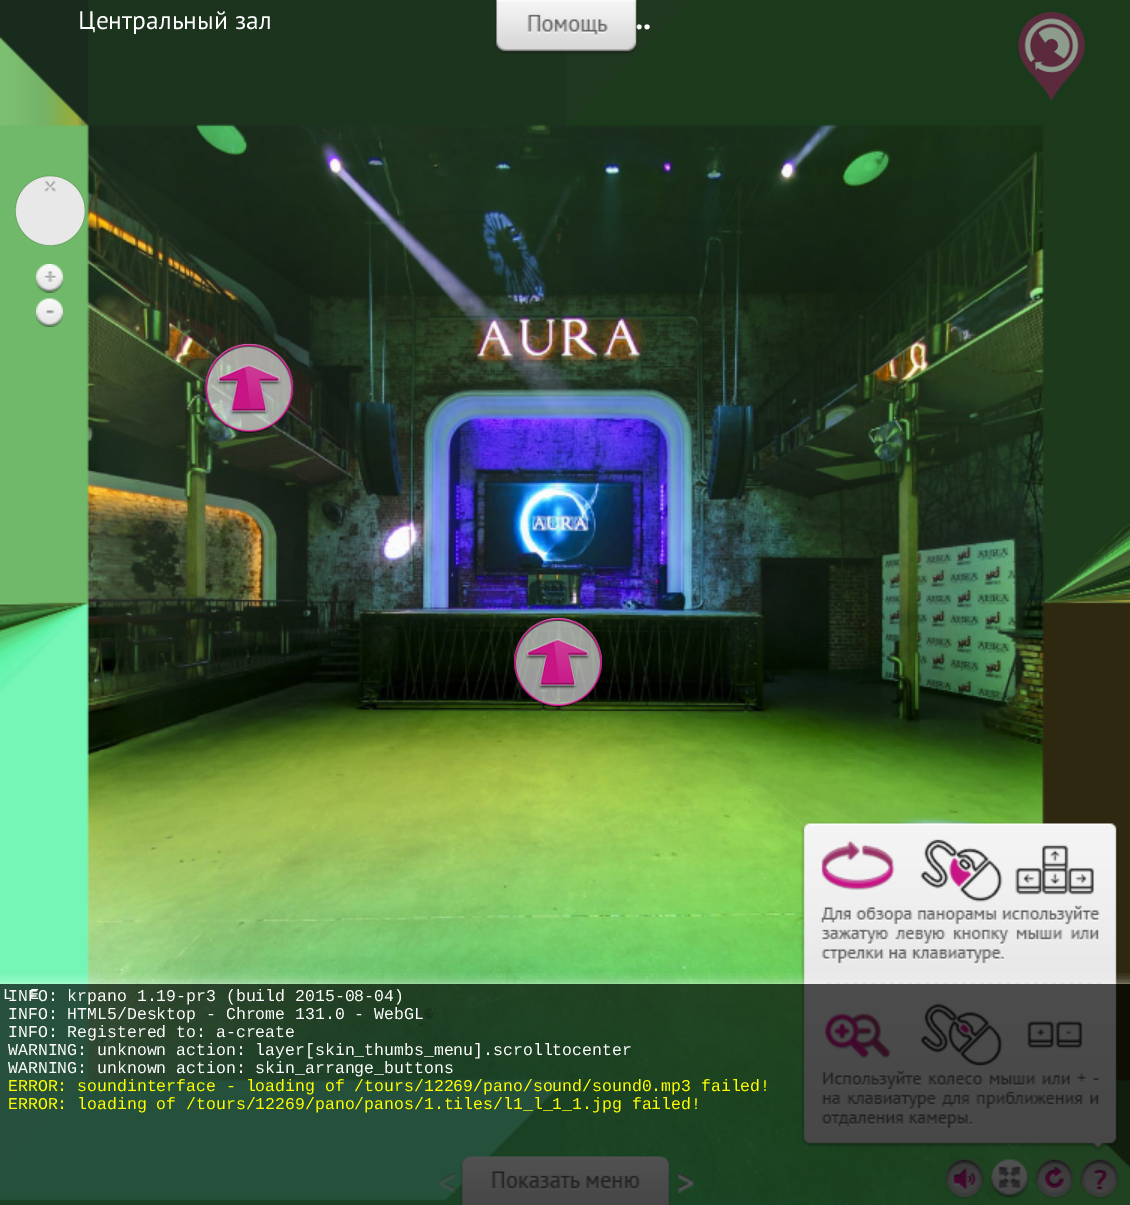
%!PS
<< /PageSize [1130 1205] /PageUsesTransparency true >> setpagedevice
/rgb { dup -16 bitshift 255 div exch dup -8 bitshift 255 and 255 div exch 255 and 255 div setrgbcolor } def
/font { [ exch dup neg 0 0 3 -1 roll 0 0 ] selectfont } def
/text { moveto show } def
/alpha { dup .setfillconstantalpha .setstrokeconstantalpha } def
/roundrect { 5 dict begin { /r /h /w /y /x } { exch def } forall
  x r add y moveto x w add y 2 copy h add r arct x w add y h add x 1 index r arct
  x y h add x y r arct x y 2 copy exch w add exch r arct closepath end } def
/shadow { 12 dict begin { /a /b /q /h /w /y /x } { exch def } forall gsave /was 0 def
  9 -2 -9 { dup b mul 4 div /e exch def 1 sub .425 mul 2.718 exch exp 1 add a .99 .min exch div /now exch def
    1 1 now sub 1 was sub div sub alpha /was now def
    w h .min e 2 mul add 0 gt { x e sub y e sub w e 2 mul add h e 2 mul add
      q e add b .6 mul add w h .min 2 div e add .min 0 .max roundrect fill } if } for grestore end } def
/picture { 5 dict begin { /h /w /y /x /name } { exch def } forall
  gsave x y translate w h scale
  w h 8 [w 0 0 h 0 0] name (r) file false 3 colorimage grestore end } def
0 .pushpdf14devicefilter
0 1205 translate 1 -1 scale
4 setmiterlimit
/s1 { /PTSans-Regular 25.5 font 16#FFFFFF rgb } def
/s2 { /PTSans-Bold 33 font 16#FFFFFF rgb } def
/s3 { /LiberationMono-Regular 16.5 font 16#FFFFFF rgb } def
/s4 { /LiberationMono-Regular 15 font 16#FFFFFF rgb } def
/s5 { /LiberationMono-Regular 16.5 font 16#FFFF00 rgb } def
16#FFFFFF rgb
0 0 1130 1205 rectfill
(pic1.raw) 0 0 1130 1205 picture
s1
(Центральный зал) 78 29 text
(pic2.raw) 438 1173 17 20 picture
(pic3.raw) 460 1156 211 49 picture
(pic4.raw) 678 1173 17 20 picture
s2
(..) 635 29 text
(pic5.raw) 495 0 143 54 picture
(pic6.raw) 1018 12 67 89 picture
(pic7.raw) 15 175 71 71 picture
(pic11.raw) 45 185 11 7 picture
(pic9.raw) 44 181 8 11 picture
(pic10.raw) 48 181 8 11 picture
(pic8.raw) 45 180 11 9 picture
(pic12.raw) 36 264 27 29 picture
(pic13.raw) 36 298 27 29 picture
(pic14.raw) 205 343 89 90 picture
(pic15.raw) 514 618 88 89 picture
(pic16.raw) 801 822 318 329 picture
(pic17.raw) 945 1159 39 40 picture
(pic18.raw) 946 1159 37 39 picture
(pic19.raw) 990 1159 39 40 picture
(pic20.raw) 1035 1159 39 40 picture
(pic21.raw) 1036 1159 37 39 picture
(pic22.raw) 1080 1159 39 40 picture
(pic23.raw) 1081 1159 37 39 picture
gsave
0 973 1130 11 rectclip
0 984 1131 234 0 6 0.67 shadow
grestore
0.67 alpha
16#000000 rgb
0 984 1130 221 rectfill
1 alpha
s3
(INFO: krpano 1.19-pr3 \(build 2015-08-04\)) 8 1001 text
s4
(L) 3 999 text
(E) 30 999 text
s3
(INFO: HTML5/Desktop - Chrome 131.0 - WebGL) 8 1019 text
(INFO: Registered to: a-create) 8 1037 text
gsave
8 987 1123 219 rectclip
(WARNING: unknown action: layer[skin_thumbs_menu].scrolltocenter) 8 1055 text
(WARNING: unknown action: skin_arrange_buttons) 8 1073 text
grestore
s5
(ERROR: soundinterface - loading of /tours/12269/pano/sound/sound0.mp3 failed!) 8 1091 text
(ERROR: loading of /tours/12269/pano/panos/1.tiles/l1_l_1_1.jpg failed!) 8 1109 text
.poppdf14devicefilter showpage
